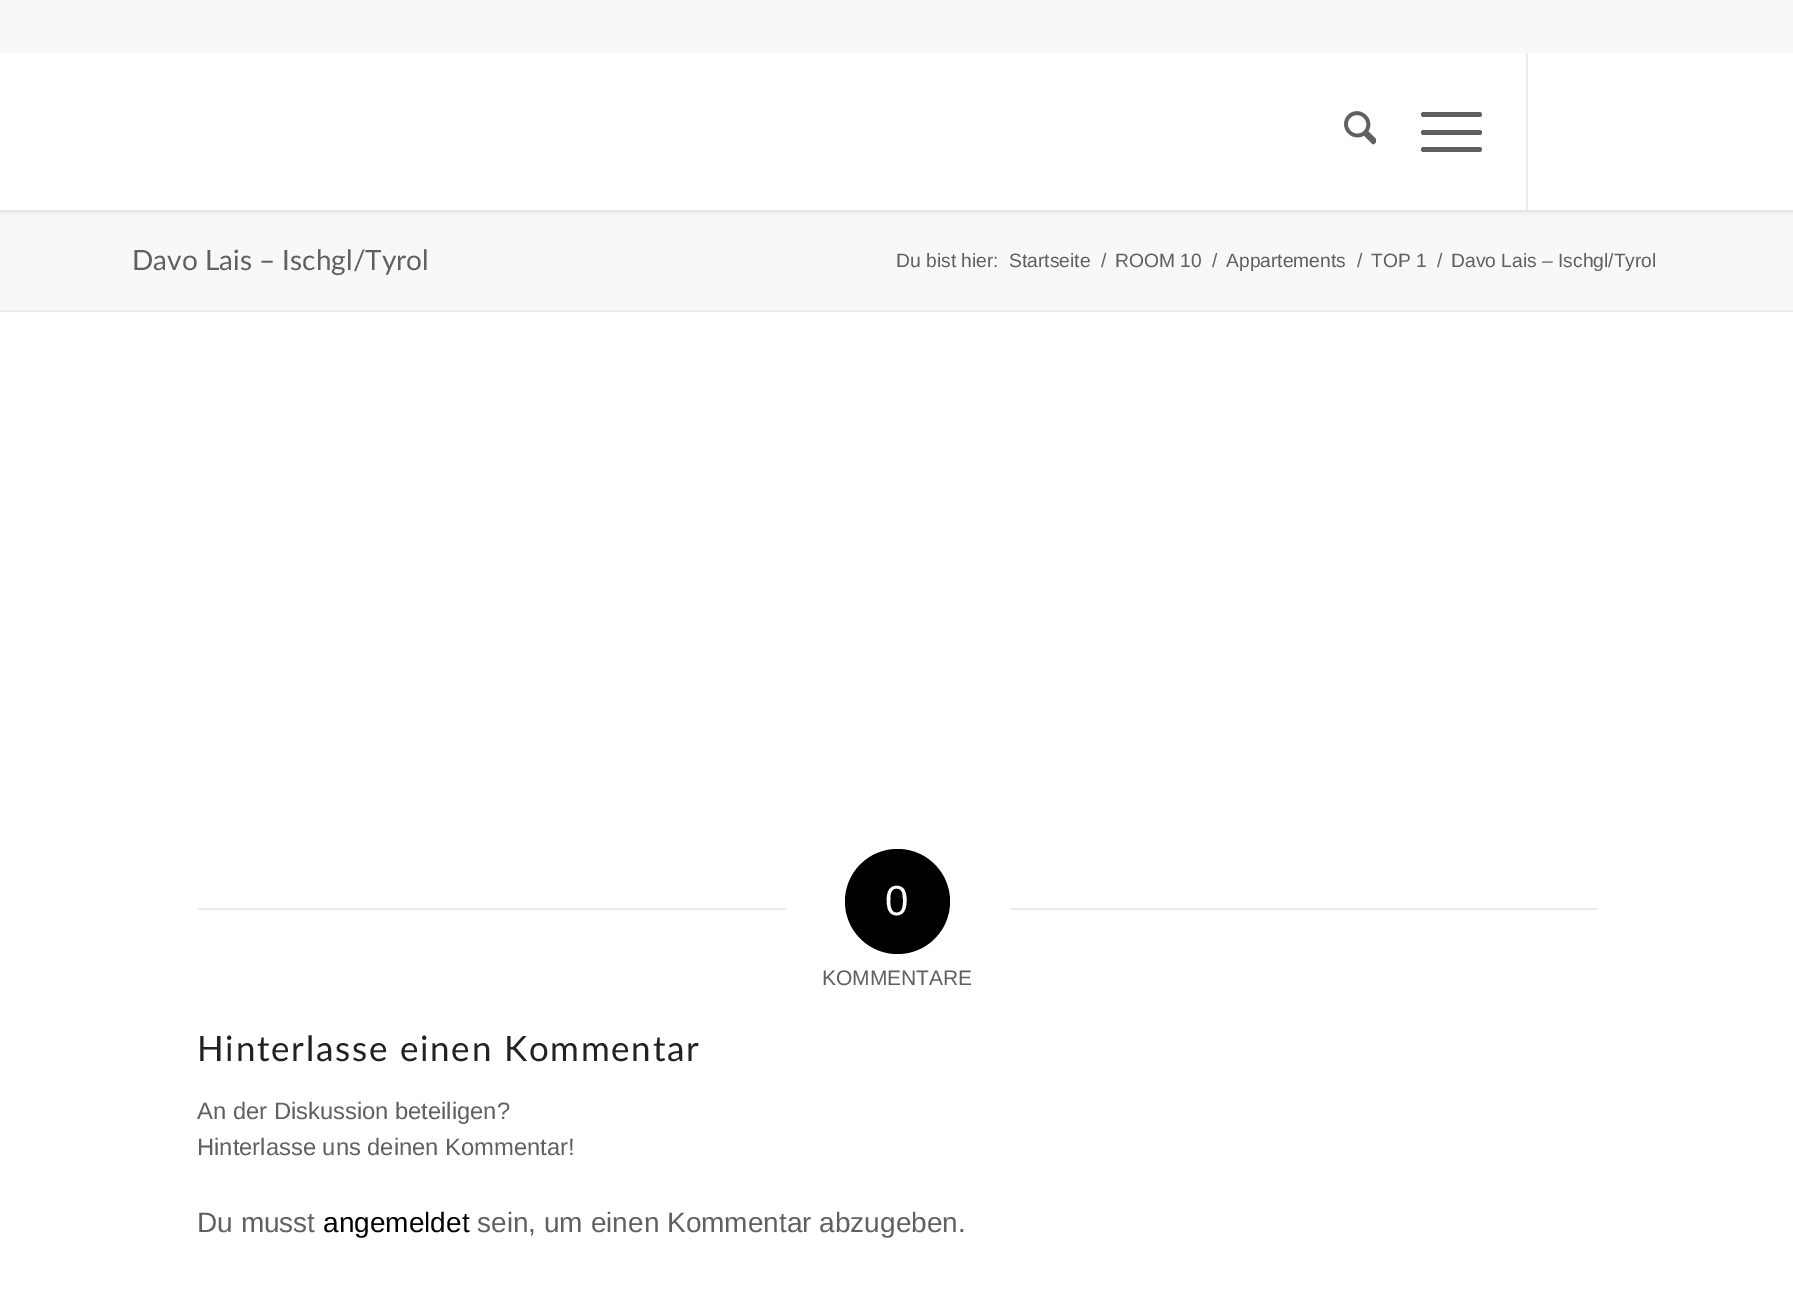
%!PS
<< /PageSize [1793 1296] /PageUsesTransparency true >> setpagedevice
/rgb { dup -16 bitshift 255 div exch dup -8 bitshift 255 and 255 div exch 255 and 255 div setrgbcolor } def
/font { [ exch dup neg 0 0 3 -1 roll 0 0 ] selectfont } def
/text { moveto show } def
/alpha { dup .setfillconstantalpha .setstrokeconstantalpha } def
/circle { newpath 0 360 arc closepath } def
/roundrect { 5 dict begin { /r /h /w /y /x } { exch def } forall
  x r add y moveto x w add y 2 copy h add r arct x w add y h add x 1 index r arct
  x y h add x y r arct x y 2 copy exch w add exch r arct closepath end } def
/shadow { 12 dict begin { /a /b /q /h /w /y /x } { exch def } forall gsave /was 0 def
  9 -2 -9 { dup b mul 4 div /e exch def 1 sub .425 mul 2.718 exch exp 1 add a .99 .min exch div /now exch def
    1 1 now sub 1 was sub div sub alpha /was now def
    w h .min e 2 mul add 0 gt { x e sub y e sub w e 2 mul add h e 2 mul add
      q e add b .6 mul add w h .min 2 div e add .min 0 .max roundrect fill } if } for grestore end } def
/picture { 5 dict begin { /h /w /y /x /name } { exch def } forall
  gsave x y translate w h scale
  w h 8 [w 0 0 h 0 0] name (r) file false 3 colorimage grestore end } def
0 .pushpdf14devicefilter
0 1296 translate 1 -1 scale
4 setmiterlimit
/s1 { /Lato-Regular 28 font 16#616060 rgb } def
/s2 { /LiberationSans-Regular 19.25 font 16#616060 rgb } def
/s3 { /LiberationSans-Regular 42 font 16#FFFFFF rgb } def
/s4 { /LiberationSans-Regular 21 font 16#616060 rgb } def
/s5 { /LiberationSans-Regular 23.75 font 16#616060 rgb } def
/s6 { /LiberationSans-Regular 28 font 16#616060 rgb } def
/s7 { /LiberationSans-Regular 28 font 16#000000 rgb } def
16#FFFFFF rgb
0 0 1793 1296 rectfill
16#F8F8F8 rgb
0 210 1793 100 rectfill
16#000000 rgb
-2 -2 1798 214 0 2 0.1 shadow
16#F8F8F8 rgb
0 0 1793 53 rectfill
16#FFFFFF rgb
0 53 1793 157 rectfill
16#EBEBEB rgb
1526 53 2 157 rectfill
(pic1.raw) 1344 111 32 34 picture
16#616060 rgb
1421 130 61 5 2.5 roundrect fill
1421 112 61 5 2.5 roundrect fill
1421 147 61 5 2.5 roundrect fill
s1
(Davo Lais – Ischgl/Tyrol) 132 270 text
s2
(Du bist hier:) 896 267 text
(Startseite) 1009 267 text
(/) 1101 267 text
(ROOM 10) 1115 267 text
(/) 1212 267 text
(Appartements) 1226 267 text
(/) 1357 267 text
(TOP 1) 1371 267 text
(/) 1437 267 text
(Davo Lais – Ischgl/Tyrol) 1451 267 text
16#EBEBEB rgb
0 310 1793 2 rectfill
198 908 588 2 rectfill
16#000000 rgb
897.5 901.5 52.5 circle fill
s3
(0) 885 915 text
16#EBEBEB rgb
1010 908 588 2 rectfill
s4
(KOMMENTARE) 822 985 text
/Lato-Regular 35 font
16#222222 rgb
197 1061 moveto 1.75 0 (Hinterlasse einen Kommentar) ashow
s5
(An der Diskussion beteiligen?) 197 1119 text
(Hinterlasse uns deinen Kommentar!) 197 1155 text
s6
(Du musst) 197 1232 text
s7
(angemeldet) 323 1232 text
s6
(sein, um einen Kommentar abzugeben.) 477 1232 text
.poppdf14devicefilter showpage
